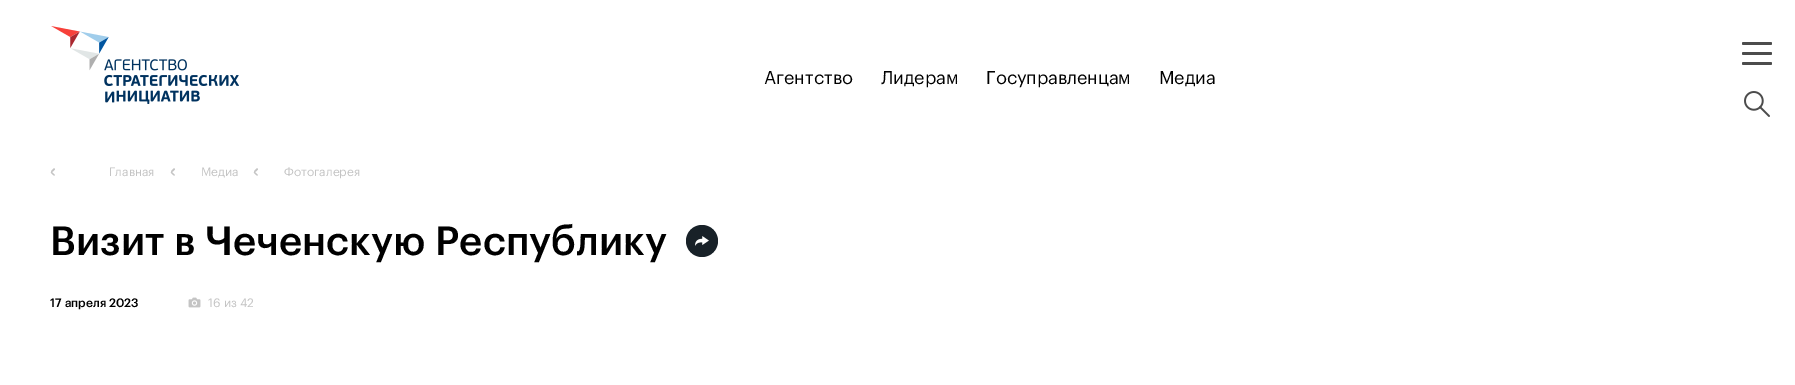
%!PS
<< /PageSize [1795 385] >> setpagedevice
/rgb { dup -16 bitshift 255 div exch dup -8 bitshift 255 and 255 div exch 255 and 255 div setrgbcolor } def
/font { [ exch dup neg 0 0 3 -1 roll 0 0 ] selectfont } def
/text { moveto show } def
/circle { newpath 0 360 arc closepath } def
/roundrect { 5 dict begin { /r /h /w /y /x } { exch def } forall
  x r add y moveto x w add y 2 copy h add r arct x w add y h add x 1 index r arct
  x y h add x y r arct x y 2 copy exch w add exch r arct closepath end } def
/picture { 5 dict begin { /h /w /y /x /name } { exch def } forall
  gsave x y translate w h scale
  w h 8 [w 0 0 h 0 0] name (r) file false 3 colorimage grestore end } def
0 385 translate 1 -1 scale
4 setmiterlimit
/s1 { /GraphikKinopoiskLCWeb-Regular 18 font 16#000000 rgb } def
/s2 { /GraphikKinopoiskLCWeb-Regular 12 font 16#C4C4C4 rgb } def
/s3 { /GraphikKinopoiskLCWeb-Medium 40 font 16#000000 rgb } def
/s4 { /GraphikKinopoiskLCWeb-Medium 12 font 16#000000 rgb } def
16#FFFFFF rgb
0 0 1795 385 rectfill
(pic1.raw) 51 26 188 78 picture
s1
(Агентство) 764 84 text
(Лидерам) 881 84 text
(Госуправленцам) 986 84 text
(Медиа) 1159 84 text
16#4C4C4C rgb
1742 42 30 3 1.5 roundrect fill
1742 52 30 3 1.5 roundrect fill
1742 62 30 3 1.5 roundrect fill
(pic2.raw) 1744 91 26 26 picture
16#C4C4C4 rgb
51 172 moveto 50 172 54 177 55 175 curveto 52 172 lineto 52 172 55 170 55 169 curveto 54 167 51 171 51 172 curveto closepath 94 172 moveto 51 172 lineto closepath fill
s2
(Главная) 109 176 text
171 172 moveto 170 172 174 177 175 175 curveto 172 172 lineto 172 172 175 170 175 169 curveto 174 167 171 171 171 172 curveto closepath 214 172 moveto 171 172 lineto closepath fill
(Медиа) 201 176 text
254 172 moveto 253 172 257 177 258 175 curveto 255 172 lineto 255 172 258 170 258 169 curveto 257 167 254 171 254 172 curveto closepath 297 172 moveto 254 172 lineto closepath fill
(Фотогалерея) 284 176 text
s3
(Визит в Чеченскую Республику) 50 255 text
16#182128 rgb
702 241 16 circle fill
(pic3.raw) 695 236 14 10 picture
s4
(17 апреля 2023) 50 307 text
(pic4.raw) 188 297 13 11 picture
s2
(16 из 42) 208 307 text
showpage
